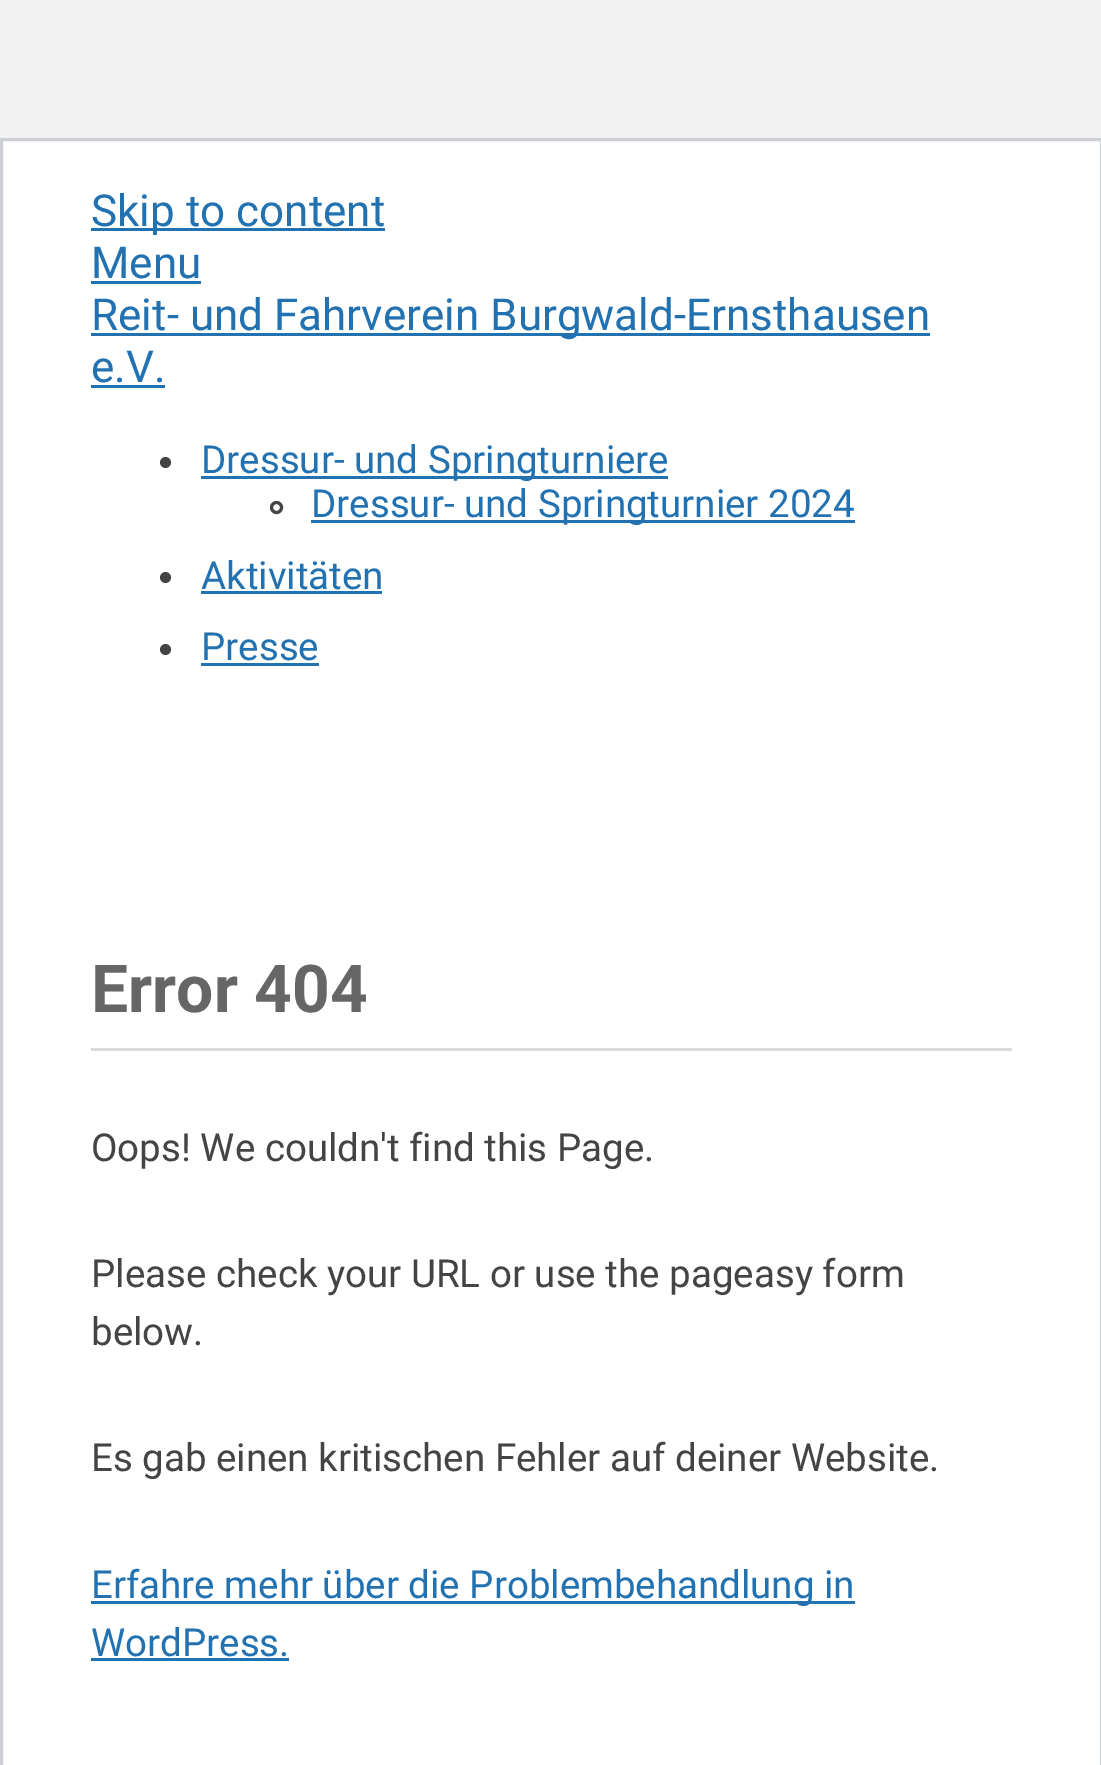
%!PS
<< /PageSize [1101 1765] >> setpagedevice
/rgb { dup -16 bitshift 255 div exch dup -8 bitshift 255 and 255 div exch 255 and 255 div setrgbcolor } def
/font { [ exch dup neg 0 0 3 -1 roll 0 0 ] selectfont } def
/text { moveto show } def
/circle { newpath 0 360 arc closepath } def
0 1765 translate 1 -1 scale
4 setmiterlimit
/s1 { /Roboto-Regular 44 font 16#2271B1 rgb } def
/s2 { /Roboto-Regular 38.5 font 16#2271B1 rgb } def
/s3 { /Roboto-Bold 66 font 16#666666 rgb } def
/s4 { /Roboto-Regular 38.5 font 16#444444 rgb } def
16#F1F1F1 rgb
0 0 1101 1765 rectfill
16#FFFFFF rgb
1.5 139.5 moveto 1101.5 139.5 lineto 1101.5 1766.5 lineto 1.5 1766.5 lineto closepath gsave fill grestore
16#CCD0D4 rgb
3 setlinewidth
stroke
16#2271B1 rgb
91 228 294 3 rectfill
s1
(Skip to content) 91 226 text
(Menu) 91 278 text
91 281 110 3 rectfill
91 333 839 3 rectfill
(Reit- und Fahrverein Burgwald-Ernsthausen) 91 330 text
(e.V.) 91 382 text
91 385 74 3 rectfill
16#444444 rgb
165.5 462.5 5.5 circle fill
16#2271B1 rgb
201 476 467 3 rectfill
s2
(Dressur- und Springturniere) 201 473 text
16#444444 rgb
276.5 507.5 5 circle stroke
16#2271B1 rgb
311 520 544 3 rectfill
(Dressur- und Springturnier 2024) 311 517 text
16#444444 rgb
165.5 577.5 5.5 circle fill
s2
(Aktivitäten) 201 589 text
201 591 181 3 rectfill
16#444444 rgb
165.5 649.5 5.5 circle fill
s2
(Presse) 201 660 text
201 663 118 3 rectfill
16#DADADA rgb
91 1048 921 3 rectfill
s3
(Error 404) 91 1012 text
s4
(Oops! We couldn't find this Page.) 91 1161 text
(Please check your URL or use the pageasy form) 91 1287 text
(below.) 91 1345 text
(Es gab einen kritischen Fehler auf deiner Website.) 91 1471 text
16#2271B1 rgb
91 1601 764 3 rectfill
(Erfahre mehr über die Problembehandlung in) 91 1598 text
(WordPress.) 91 1656 text
91 1658 198 3 rectfill
showpage
